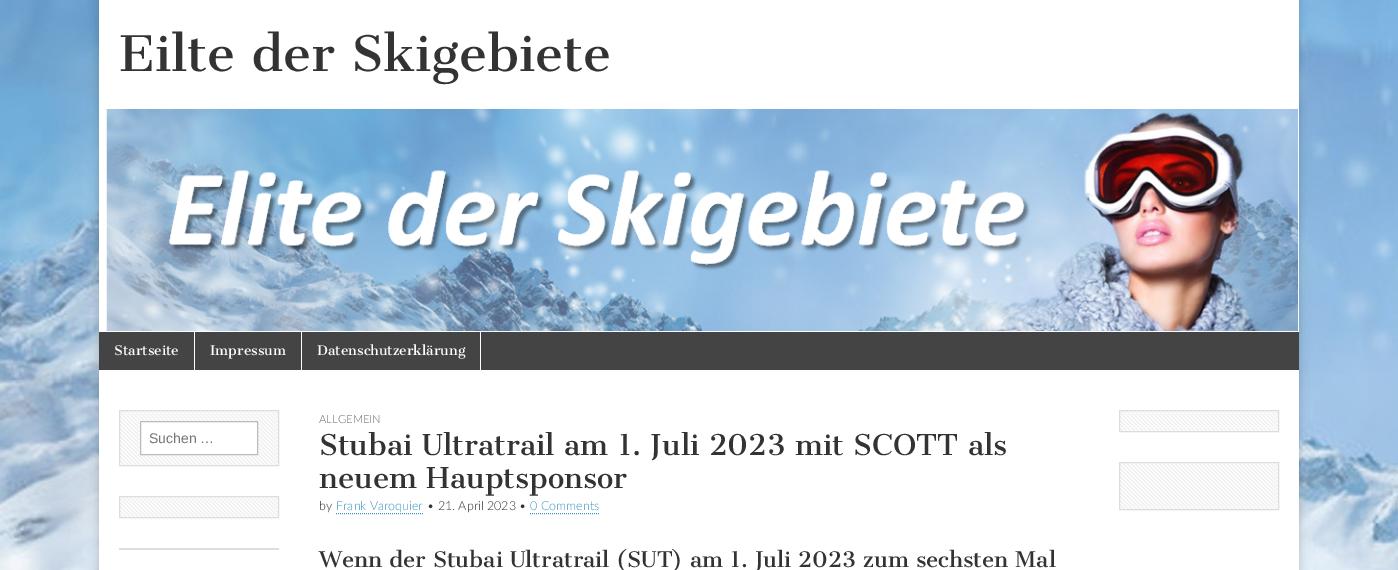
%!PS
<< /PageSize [1398 570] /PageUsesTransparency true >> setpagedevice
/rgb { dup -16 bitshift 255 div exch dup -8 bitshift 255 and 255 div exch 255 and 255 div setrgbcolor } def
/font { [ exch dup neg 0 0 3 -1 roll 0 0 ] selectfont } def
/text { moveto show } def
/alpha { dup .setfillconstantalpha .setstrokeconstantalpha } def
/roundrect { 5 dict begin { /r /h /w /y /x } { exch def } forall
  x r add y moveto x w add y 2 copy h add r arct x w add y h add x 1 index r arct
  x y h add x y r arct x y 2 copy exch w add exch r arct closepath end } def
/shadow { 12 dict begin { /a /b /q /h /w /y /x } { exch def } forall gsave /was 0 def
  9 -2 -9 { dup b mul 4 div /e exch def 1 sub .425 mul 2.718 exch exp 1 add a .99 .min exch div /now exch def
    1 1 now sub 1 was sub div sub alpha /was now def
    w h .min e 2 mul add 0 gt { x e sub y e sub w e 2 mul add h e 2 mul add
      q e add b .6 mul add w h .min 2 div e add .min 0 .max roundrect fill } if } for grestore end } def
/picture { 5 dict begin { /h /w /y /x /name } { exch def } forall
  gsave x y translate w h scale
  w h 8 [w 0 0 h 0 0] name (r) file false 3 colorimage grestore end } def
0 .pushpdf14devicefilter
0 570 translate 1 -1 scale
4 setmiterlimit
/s1 { /CantataOne-Regular 48 font 16#333333 rgb } def
/s2 { /CantataOne-Regular 13 font 16#FFFFFF rgb } def
/s3 { /LiberationSans-Regular 14 font 16#757575 rgb } def
/s4 { /Lato-Light 11.25 font 16#666666 rgb } def
/s5 { /CantataOne-Regular 28 font 16#333333 rgb } def
/s6 { /Lato-Light 12.5 font 16#333333 rgb } def
/s7 { /Lato-Light 12.5 font 16#3D97C2 rgb } def
/s8 { /CantataOne-Regular 21 font 16#333333 rgb } def
16#FFFFFF rgb
0 0 1398 570 rectfill
(pic1.raw) 0 0 1398 570 picture
16#000000 rgb
99 0 1200 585 0 5 0.2 shadow
16#FFFFFF rgb
99 0 1200 570 rectfill
s1
(Eilte der Skigebiete) 119 71 text
(pic2.raw) 106 109 1193 223 picture
16#444444 rgb
99 332 1200 38 rectfill
16#FFFFFF rgb
194 332 1 38 rectfill
s2
(Startseite) 114 355 text
301 332 1 38 rectfill
(Impressum) 210 355 text
480 332 1 38 rectfill
(Datenschutzerklärung) 317 355 text
(pic3.raw) 120 411 158 54 picture
16#DDDDDD rgb
119.5 410.5 159 55 rectstroke
16#FFFFFF rgb
140.5 421.5 moveto 257.5 421.5 lineto 257.5 454.5 lineto 140.5 454.5 lineto closepath gsave fill grestore
16#BBBBBB rgb
stroke
s3
(Suchen …) 149 443 text
(pic4.raw) 120 497 158 20 picture
16#DDDDDD rgb
119.5 496.5 159 21 rectstroke
119 548 160 2 rectfill
s4
(ALLGEMEIN) 319 423 text
s5
(Stubai Ultratrail am 1. Juli 2023 mit SCOTT als) 319 455 text
(neuem Hauptsponsor) 319 488 text
s6
(by) 319 510 text
s7
(Frank Varoquier) 336 510 text
[1 1] 0 setdash
336 513.5 moveto 423 513.5 lineto stroke
s6
(• 21. April 2023 •) 427 510 text
s7
(0 Comments) 530 510 text
530 513.5 moveto 600 513.5 lineto stroke
s8
(Wenn der Stubai Ultratrail \(SUT\) am 1. Juli 2023 zum sechsten Mal) 319 567 text
(pic4.raw) 1120 411 158 20 picture
16#DDDDDD rgb
[] 0 setdash
1119.5 410.5 159 21 rectstroke
(pic5.raw) 1120 463 158 46 picture
1119.5 462.5 159 47 rectstroke
.poppdf14devicefilter showpage
